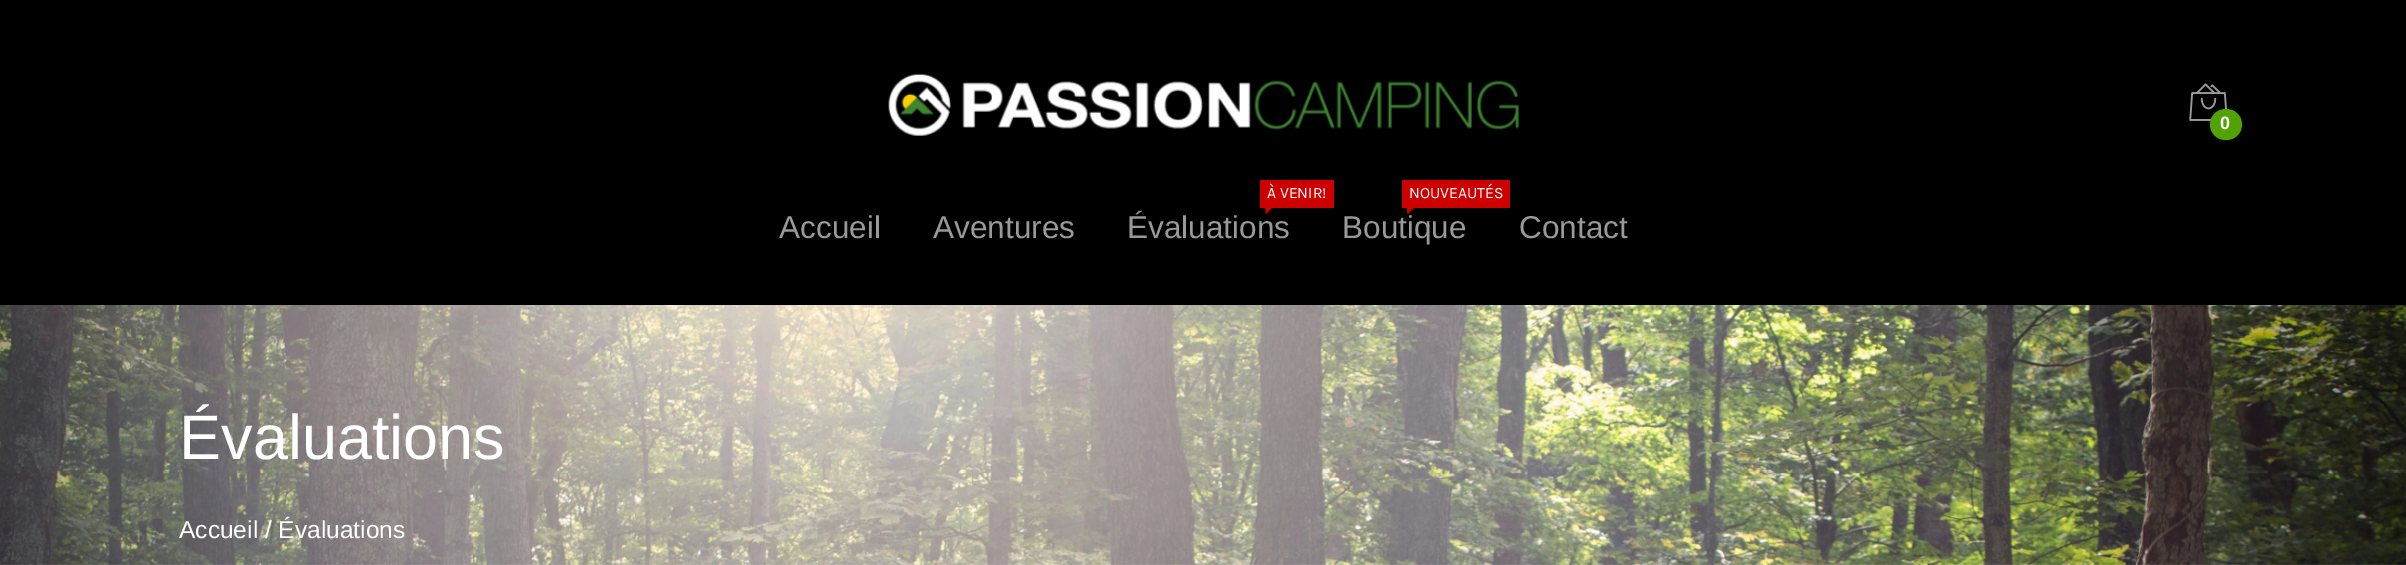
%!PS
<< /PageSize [2406 565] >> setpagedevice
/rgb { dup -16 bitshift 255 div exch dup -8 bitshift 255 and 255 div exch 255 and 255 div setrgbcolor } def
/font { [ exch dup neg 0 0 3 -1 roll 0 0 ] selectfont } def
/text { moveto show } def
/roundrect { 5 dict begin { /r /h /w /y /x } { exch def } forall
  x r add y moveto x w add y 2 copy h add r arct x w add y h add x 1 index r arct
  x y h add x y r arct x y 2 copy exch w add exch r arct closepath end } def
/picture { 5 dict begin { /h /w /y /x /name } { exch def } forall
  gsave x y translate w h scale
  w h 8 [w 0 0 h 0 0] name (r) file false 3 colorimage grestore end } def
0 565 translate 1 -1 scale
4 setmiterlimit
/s1 { /LiberationSans-Bold 18 font 16#FFFFFF rgb } def
/s2 { /LiberationSans-Regular 31.5 font 16#999999 rgb } def
/s3 { /Karla-Regular 15.75 font 16#FFFFFF rgb } def
/s4 { /LiberationSans-Regular 63 font 16#FFFFFF rgb } def
/s5 { /LiberationSans-Regular 24.5 font 16#FFFFFF rgb } def
16#FFFFFF rgb
0 0 2406 565 rectfill
16#000000 rgb
0 0 2406 305 rectfill
(pic1.raw) 888 73 632 63 picture
(pic2.raw) 2189 83 38 38 picture
16#51A203 rgb
2210 109 32 31 15.5 roundrect fill
s1
(0) 2220 129 text
s2
(Accueil) 779 238 text
(Aventures) 933 238 text
16#CC0000 rgb
1260 180 74 28 rectfill
s3
(À VENIR!) 1267 198 text
s2
(Évaluations) 1127 238 text
(pic3.raw) 1265 208 7 6 picture
16#CC0000 rgb
1402 180 108 28 rectfill
s3
(NOUVEAUTÉS) 1409 198 text
(pic4.raw) 1407 208 7 6 picture
s2
(Boutique) 1342 238 text
(Contact) 1519 238 text
(pic5.raw) 0 305 2406 260 picture
s4
(Évaluations) 179 459 text
s5
(Accueil / Évaluations) 179 538 text
showpage
